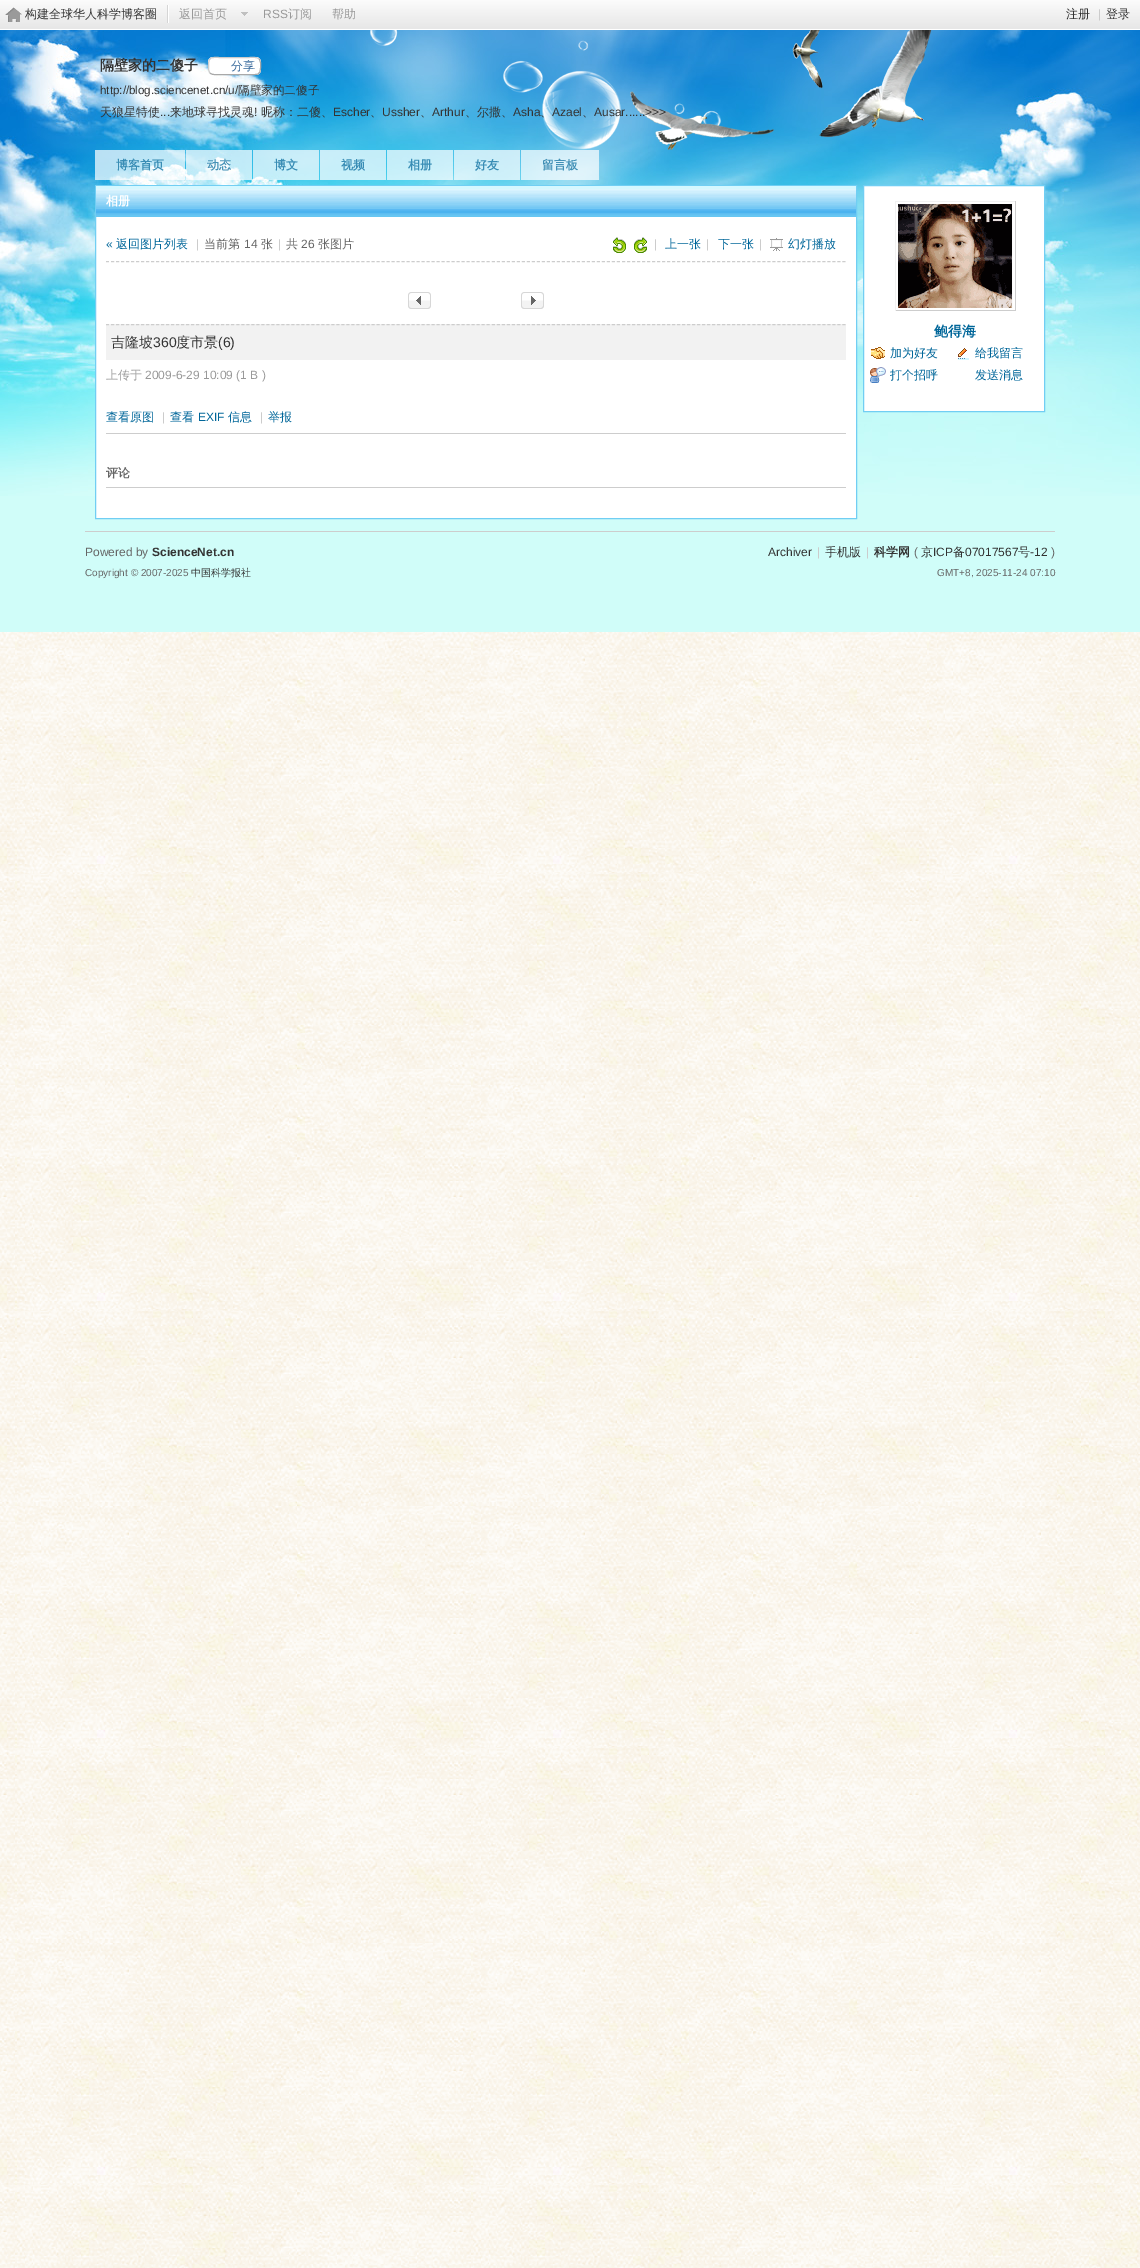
%!PS
<< /PageSize [1140 2268] /PageUsesTransparency true >> setpagedevice
/rgb { dup -16 bitshift 255 div exch dup -8 bitshift 255 and 255 div exch 255 and 255 div setrgbcolor } def
/font { [ exch dup neg 0 0 3 -1 roll 0 0 ] selectfont } def
/text { moveto show } def
/alpha { dup .setfillconstantalpha .setstrokeconstantalpha } def
/roundrect { 5 dict begin { /r /h /w /y /x } { exch def } forall
  x r add y moveto x w add y 2 copy h add r arct x w add y h add x 1 index r arct
  x y h add x y r arct x y 2 copy exch w add exch r arct closepath end } def
/picture { 5 dict begin { /h /w /y /x /name } { exch def } forall
  gsave x y translate w h scale
  w h 8 [w 0 0 h 0 0] name (r) file false 3 colorimage grestore end } def
0 .pushpdf14devicefilter
0 2268 translate 1 -1 scale
4 setmiterlimit
/s1 { /WenQuanYiZenHei-Medium 12 font 16#333333 rgb } def
/s2 { /WenQuanYiZenHei-Medium 12 font 16#999999 rgb } def
/s3 { /LiberationSans-Regular 12 font 16#999999 rgb } def
/s4 { /LiberationSans-Regular 12 font 16#CCCCCC rgb } def
/s5 { /WenQuanYiZenHei-Bold 14 font 16#333333 rgb } def
/s6 { /WenQuanYiZenHei-Medium 12 font 16#336699 rgb } def
/s7 { /LiberationSans-Regular 11.6 font 16#333333 rgb } def
/s8 { /WenQuanYiZenHei-Medium 11.6 font 16#333333 rgb } def
/s9 { /LiberationSans-Regular 12 font 16#333333 rgb } def
/s10 { /WenQuanYiZenHei-Bold 12 font 16#398DB5 rgb } def
/s11 { /WenQuanYiZenHei-Bold 12 font 16#4792B7 rgb } def
/s12 { /WenQuanYiZenHei-Bold 12 font 16#4190B6 rgb } def
/s13 { /WenQuanYiZenHei-Bold 12 font 16#FFFFFF rgb } def
/s14 { /LiberationSans-Regular 12 font 16#006699 rgb } def
/s15 { /WenQuanYiZenHei-Medium 12 font 16#006699 rgb } def
/s16 { /WenQuanYiZenHei-Medium 12 font 16#666666 rgb } def
/s17 { /LiberationSans-Regular 12 font 16#666666 rgb } def
/s18 { /WenQuanYiZenHei-Medium 14 font 16#333333 rgb } def
/s19 { /LiberationSans-Regular 14 font 16#333333 rgb } def
/s20 { /WenQuanYiZenHei-Bold 12 font 16#666666 rgb } def
/s21 { /WenQuanYiZenHei-Bold 14 font 16#006699 rgb } def
/s22 { /LiberationSans-Bold 12 font 16#333333 rgb } def
/s23 { /LiberationSans-Regular 10 font 16#666666 rgb } def
/s24 { /WenQuanYiZenHei-Medium 10 font 16#333333 rgb } def
/s25 { /WenQuanYiZenHei-Bold 12 font 16#333333 rgb } def
16#FFFFFF rgb
0 0 1140 2268 rectfill
(pic1.raw) 0 632 1140 1636 picture
16#D0FDF9 rgb
0 496 1140 136 rectfill
(pic2.raw) 0 30 1140 466 picture
(pic3.raw) 0 0 1140 30 picture
(pic4.raw) 5 7 17 15 picture
16#FFFFFF rgb
168 5 1 18 rectfill
16#D5D5D5 rgb
167 5 1 18 rectfill
s1
(构建全球华人科学博客圈) 25 18 text
s2
(返回首页) 179 18 text
(pic5.raw) 241 12 7 4 picture
s3
(RSS) 263 18 text
s2
(订阅) 288 18 text
(帮助) 332 18 text
s1
(注册) 1066 18 text
s4
(|) 1098 18 text
s1
(登录) 1106 18 text
(pic6.raw) 370 30 562 120 picture
s5
(隔壁家的二傻子) 100 70 text
16#FFFFFF rgb
208 57 53 18 5 roundrect fill
16#A9A9A9 rgb
259 59 moveto 261 61 260.5 64 260.5 67 curveto 260.5 76 257.5 74.5 249 74.5 curveto 220 74.5 lineto 218 74.5 212.5 75.5 210 73 curveto stroke
16#CCCCCC rgb
210 73 moveto 208 71 208.5 68 208.5 65 curveto 208.5 56 211.5 57.5 220 57.5 curveto 249 57.5 lineto 251 57.5 256.5 56.5 259 59 curveto stroke
s6
(分享) 231 70 text
s7
(http://blog.sciencenet.cn/u/) 100 94 text
s8
(隔壁家的二傻子) 238 94 text
s1
(天狼星特使) 100 116 text
s9
(...) 160 116 text
s1
(来地球寻找灵魂) 170 116 text
s9
(!) 254 116 text
s1
(昵称：二傻、) 261 116 text
s9
(Escher) 333 116 text
s1
(、) 370 116 text
s9
(Ussher) 382 116 text
s1
(、) 420 116 text
s9
(Arthur) 432 116 text
s1
(、尔撒、) 465 116 text
s9
(Asha) 513 116 text
s1
(、) 540 116 text
s9
(Azael) 552 116 text
s1
(、) 582 116 text
s9
(Ausar......>>>) 594 116 text
0.7 alpha
16#FFFFFF rgb
95 150 90 30 rectfill
1 alpha
s10
(博客首页) 116 169 text
0.7 alpha
16#FFFFFF rgb
186 150 66 30 rectfill
1 alpha
s11
(动态) 207 169 text
0.7 alpha
16#FFFFFF rgb
253 150 66 30 rectfill
1 alpha
s10
(博文) 274 169 text
0.7 alpha
16#FFFFFF rgb
320 150 66 30 rectfill
1 alpha
s10
(视频) 341 169 text
0.7 alpha
16#FFFFFF rgb
387 150 66 30 rectfill
1 alpha
s10
(相册) 408 169 text
0.7 alpha
16#FFFFFF rgb
454 150 66 30 rectfill
1 alpha
s10
(好友) 475 169 text
0.7 alpha
16#FFFFFF rgb
521 150 78 30 rectfill
1 alpha
s12
(留言板) 542 169 text
16#FFFFFF rgb
96 217 760 301 rectfill
16#71CEF3 rgb
95.5 185.5 761 333 rectstroke
(pic7.raw) 96 186 760 31 picture
s13
(相册) 106 205 text
16#CDCDCD rgb
[3 2.01] 0 setdash
106 261.5 moveto 846 261.5 lineto stroke
s14
(«) 106 248 text
s15
(返回图片列表) 116 248 text
s4
(|) 196 248 text
s16
(当前第) 204 248 text
s17
(14) 244 248 text
s16
(张) 261 248 text
s4
(|) 278 248 text
s16
(共) 286 248 text
s17
(26) 301 248 text
s16
(张图片) 318 248 text
(pic8.raw) 613 237 13 16 picture
(pic9.raw) 634 237 13 16 picture
s4
(|) 654 248 text
s15
(上一张) 665 248 text
s4
(|) 706 248 text
s15
(下一张) 718 248 text
s4
(|) 759 248 text
(pic10.raw) 770 238 13 13 picture
s15
(幻灯播放) 788 248 text
(pic11.raw) 408 292 23 17 picture
(pic12.raw) 521 292 23 17 picture
16#CDCDCD rgb
106 433 740 1 rectfill
16#F2F2F2 rgb
106 324 740 36 rectfill
16#CDCDCD rgb
106 324.5 moveto 846 324.5 lineto stroke
s18
(吉隆坡) 111 347 text
s19
(360) 153 347 text
s18
(度市景) 176 347 text
s19
(\(6\)) 218 347 text
s2
(上传于) 106 379 text
s3
(2009-6-29 10:09 \(1 B \)) 145 379 text
s15
(查看原图) 106 421 text
s4
(|) 162 421 text
s15
(查看) 170 421 text
s14
(EXIF) 198 421 text
s15
(信息) 228 421 text
s4
(|) 260 421 text
s15
(举报) 268 421 text
16#CDCDCD rgb
106 487 740 1 rectfill
s20
(评论) 106 477 text
16#FFFFFF rgb
863.5 185.5 moveto 1044.5 185.5 lineto 1044.5 411.5 lineto 863.5 411.5 lineto closepath gsave fill grestore
16#71CEF3 rgb
[] 0 setdash
stroke
16#F2F2F2 rgb
895 201 121 1 rectfill
16#CDCDCD rgb
1015 201 1 110 rectfill
895 310 121 1 rectfill
16#F2F2F2 rgb
895 201 1 110 rectfill
(pic13.raw) 898 204 115 104 picture
s21
(鲍得海) 934 336 text
(pic14.raw) 871 347 14 12 picture
s15
(加为好友) 890 357 text
(pic15.raw) 958 348 11 12 picture
(给我留言) 975 357 text
(pic16.raw) 870 367 16 16 picture
(打个招呼) 890 379 text
(发送消息) 975 379 text
16#CDCDCD rgb
85 531 970 1 rectfill
s17
(Powered by) 85 556 text
s22
(ScienceNet.cn) 152 556 text
s23
(Copyright © 2007-2025) 85 576 text
s24
(中国科学报社) 191 576 text
s9
(Archiver) 768 556 text
s4
(|) 817 556 text
s1
(手机版) 825 556 text
s4
(|) 866 556 text
s25
(科学网) 874 556 text
s17
(\() 914 556 text
s1
(京) 921 556 text
s9
(ICP) 933 556 text
s1
(备) 953 556 text
s9
(07017567) 965 556 text
s1
(号) 1018 556 text
s9
(-12) 1030 556 text
s17
(\)) 1051 556 text
s23
(GMT+8, 2025-11-24 07:10) 937 576 text
.poppdf14devicefilter showpage
